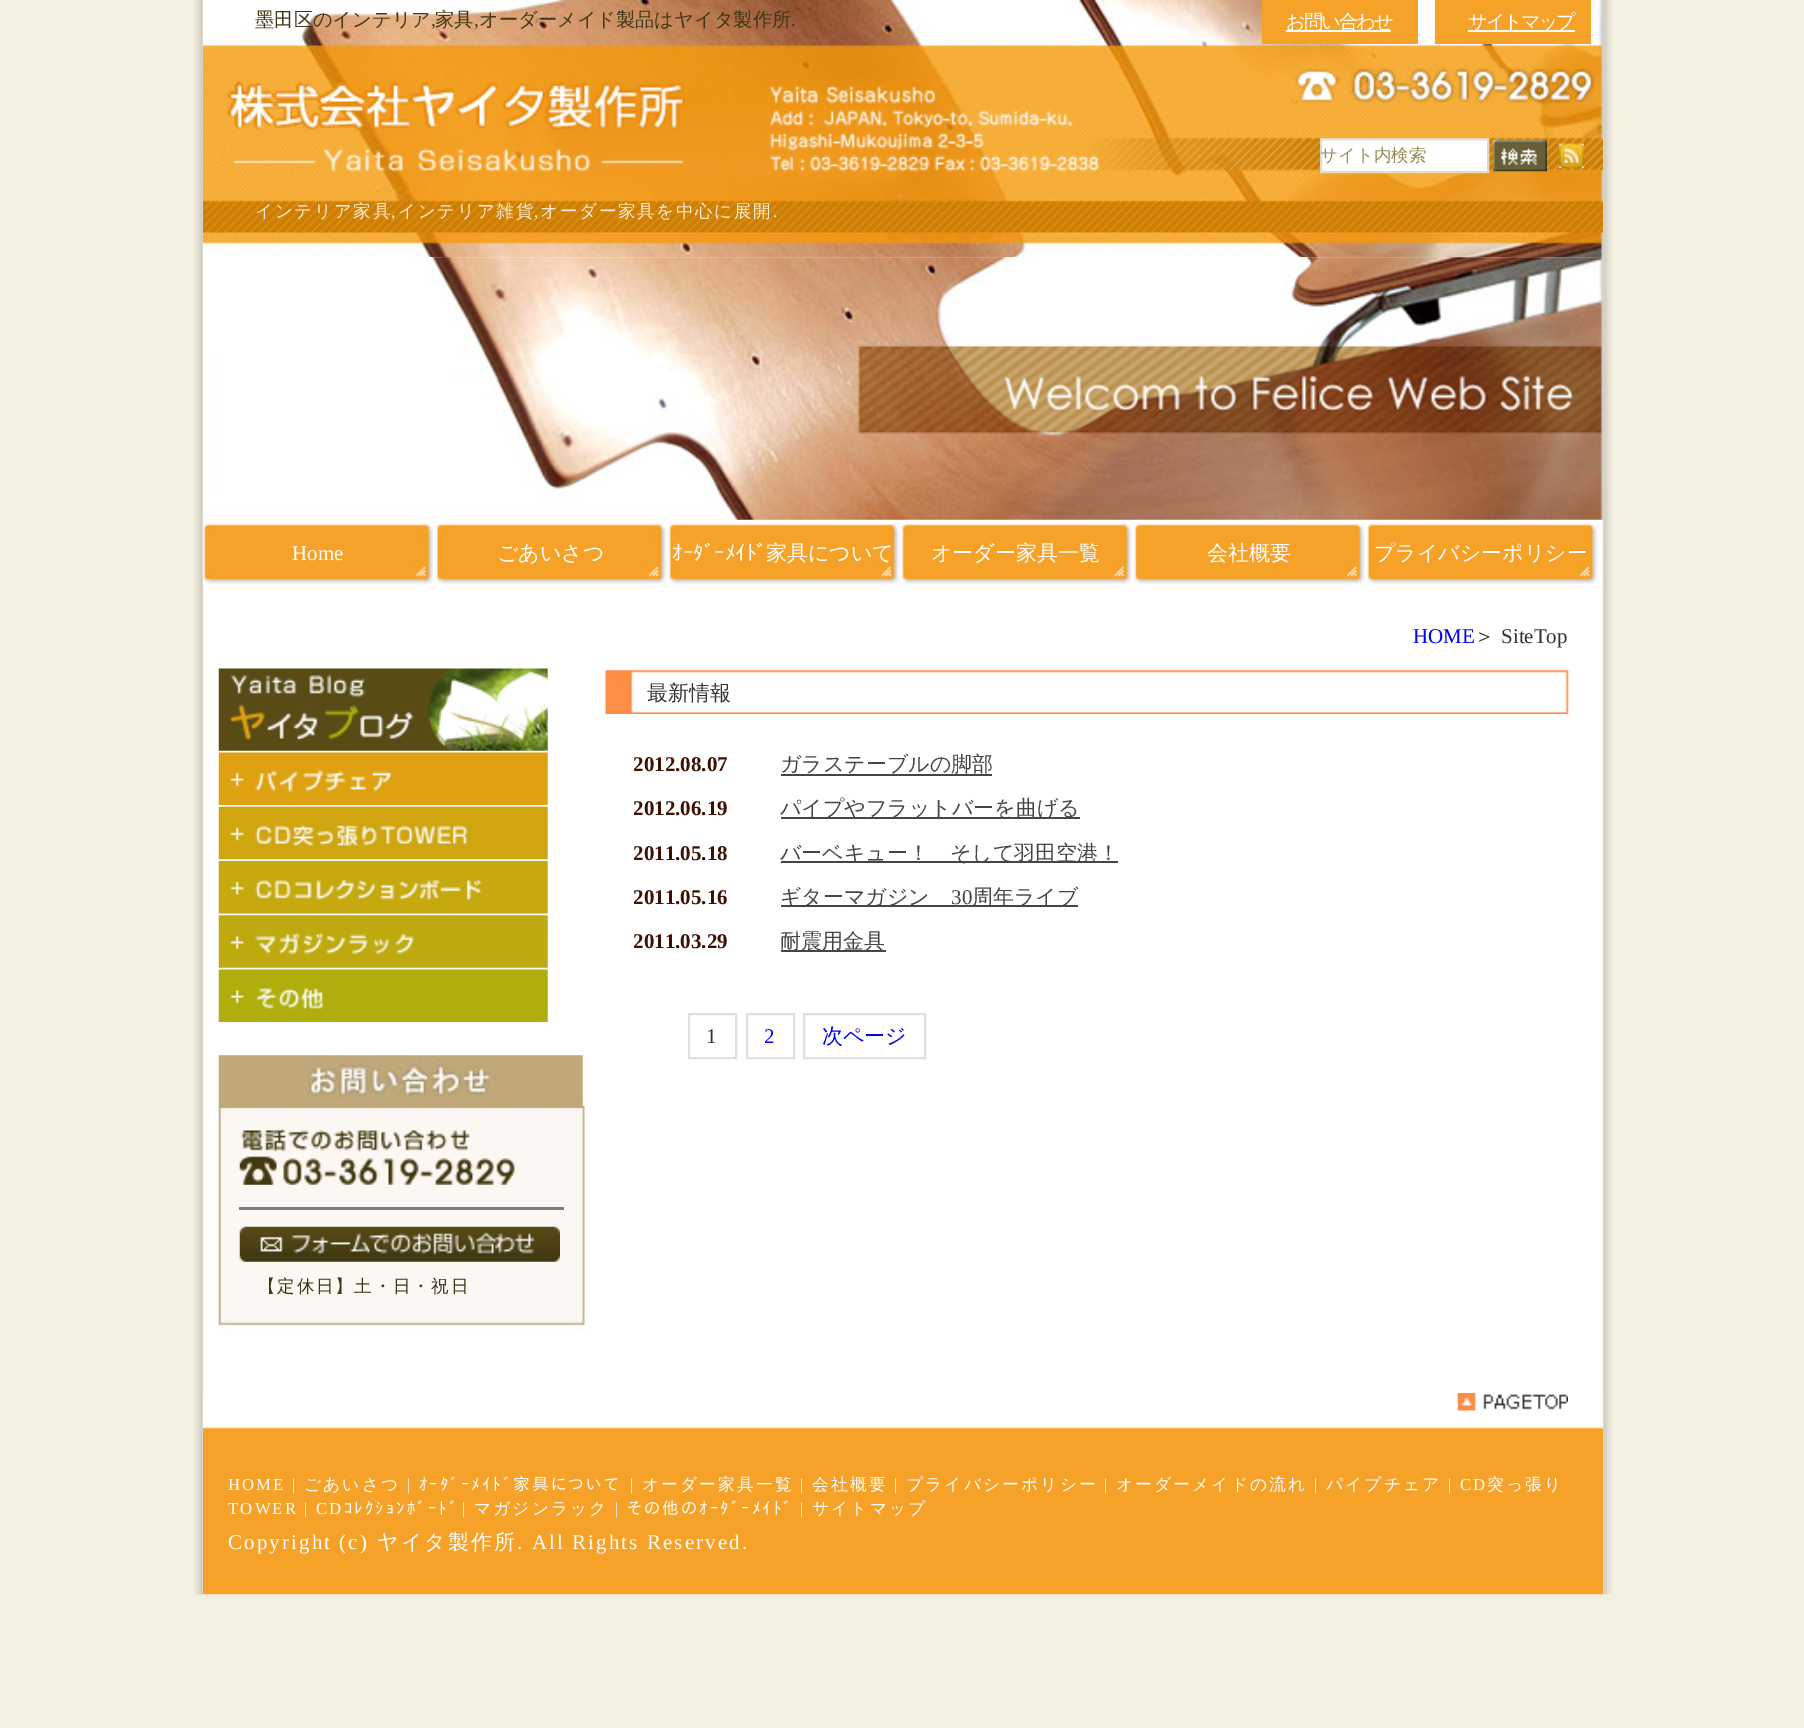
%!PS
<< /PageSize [1804 1728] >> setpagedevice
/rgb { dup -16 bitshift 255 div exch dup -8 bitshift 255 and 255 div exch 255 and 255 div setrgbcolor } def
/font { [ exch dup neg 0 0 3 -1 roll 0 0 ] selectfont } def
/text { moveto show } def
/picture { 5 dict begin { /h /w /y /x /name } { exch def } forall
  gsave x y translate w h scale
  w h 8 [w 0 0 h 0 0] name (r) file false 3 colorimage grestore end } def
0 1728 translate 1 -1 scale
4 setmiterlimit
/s1 { /WenQuanYiZenHei-Medium 19.25 font 16#403717 rgb } def
/s2 { /LiberationSerif-Regular 19.25 font 16#403717 rgb } def
/s3 { /WenQuanYiZenHei-Medium 17.5 font 16#978951 rgb } def
/s4 { /LiberationSerif-Regular 21 font 16#FFFFFF rgb } def
/s5 { /WenQuanYiZenHei-Medium 21 font 16#FFFFFF rgb } def
/s6 { /IPAPGothic-Regular 21 font 16#FFFFFF rgb } def
/s7 { /LiberationSerif-Regular 21 font 16#0000EE rgb } def
/s8 { /WenQuanYiZenHei-Medium 21 font 16#333333 rgb } def
/s9 { /LiberationSerif-Regular 21 font 16#333333 rgb } def
/s10 { /LiberationSerif-Bold 21 font 16#3E1000 rgb } def
/s11 { /WenQuanYiZenHei-Medium 21 font 16#454545 rgb } def
/s12 { /LiberationSerif-Regular 21 font 16#454545 rgb } def
/s13 { /WenQuanYiZenHei-Medium 21 font 16#0000EE rgb } def
16#F4F0E1 rgb
0 0 1804 1728 rectfill
(pic1.raw) 194 0 1418 1595 picture
(pic2.raw) 203 0 1400 258 picture
s1
(墨田区のインテリア) 255 26 text
s2
(,) 431 26 text
s1
(家具) 435 26 text
s2
(,) 474 26 text
s1
(オーダーメイド製品はヤイタ製作所) 479 26 text
s2
(.) 791 26 text
(pic3.raw) 227 80 458 92 picture
/WenQuanYiZenHei-Medium 17.5 font
16#FCEDD3 rgb
255 217 moveto 1.75 0 (インテリア家具) ashow
/LiberationSerif-Regular 17.5 font
391 217 moveto 1.75 0 (,) ashow
/WenQuanYiZenHei-Medium 17.5 font
398 217 moveto 1.75 0 (インテリア雑貨) ashow
/LiberationSerif-Regular 17.5 font
534 217 moveto 1.75 0 (,) ashow
/WenQuanYiZenHei-Medium 17.5 font
540 217 moveto 1.75 0 (オーダー家具を中心に展開) ashow
/LiberationSerif-Regular 17.5 font
773 217 moveto 1.75 0 (.) ashow
16#F6A228 rgb
1262 0 156 44 rectfill
16#FFFFFF rgb
1286 30 105 2 rectfill
/WenQuanYiZenHei-Medium 19.25 font
1286 28 moveto -2 0 (お問い合わせ) ashow
16#F6A228 rgb
1435 0 156 44 rectfill
16#FFFFFF rgb
1468 30 107 2 rectfill
1468 28 moveto -2 0 (サイトマップ) ashow
(pic4.raw) 1293 68 302 36 picture
1321 139 moveto 1488 139 lineto 1488 172 lineto 1321 172 lineto closepath gsave fill grestore
16#E1DCC8 rgb
2 setlinewidth
stroke
s3
(サイト内検索) 1320 161 text
(pic5.raw) 1492 140 55 32 picture
(pic6.raw) 1559 143 25 25 picture
(pic7.raw) 203 257 1400 263 picture
(pic8.raw) 203 523 231 62 picture
s4
(Home) 292 560 text
(pic9.raw) 436 523 231 62 picture
s5
(ごあいさつ) 497 560 text
(pic10.raw) 668 523 232 62 picture
s6
(ｵｰﾀﾞｰﾒｲﾄﾞ) 672 560 text
s5
(家具について) 766 560 text
(pic11.raw) 901 523 231 62 picture
(オーダー家具一覧) 931 560 text
(pic12.raw) 1134 523 231 62 picture
(会社概要) 1207 560 text
(pic13.raw) 1367 523 231 62 picture
(プライバシーポリシー) 1374 560 text
s7
(HOME) 1413 643 text
s8
(＞) 1474 643 text
s9
(SiteTop) 1501 643 text
(pic14.raw) 605 670 964 44 picture
s8
(最新情報) 647 700 text
s10
(2012.08.07) 633 771 text
s11
(ガラステーブルの脚部) 780 771 text
781 774 211 2 rectfill
s10
(2012.06.19) 633 815 text
16#454545 rgb
781 817 299 2 rectfill
s11
(パイプやフラットバーを曲げる) 780 815 text
s10
(2011.05.18) 633 860 text
16#454545 rgb
781 861 337 2 rectfill
s11
(バーベキュー！　そして羽田空港！) 780 860 text
s10
(2011.05.16) 633 904 text
16#454545 rgb
781 905 297 2 rectfill
s11
(ギターマガジン) 780 904 text
s12
(30) 951 904 text
s11
(周年ライブ) 972 904 text
s10
(2011.03.29) 633 948 text
16#454545 rgb
781 950 105 2 rectfill
s11
(耐震用金具) 780 948 text
16#DFDFDF rgb
689 1014 47 44 rectstroke
s9
(1) 706 1043 text
16#DFDFDF rgb
747 1014 47 44 rectstroke
s7
(2) 764 1043 text
16#DFDFDF rgb
804 1014 121 44 rectstroke
s13
(次ページ) 822 1043 text
(pic15.raw) 218 668 330 83 picture
(pic16.raw) 218 752 330 53 picture
(pic17.raw) 218 806 330 54 picture
(pic18.raw) 218 861 330 53 picture
(pic19.raw) 218 915 330 53 picture
(pic20.raw) 218 969 330 53 picture
(pic21.raw) 218 1097 367 238 picture
(pic22.raw) 218 1055 365 53 picture
16#7C7C7C rgb
239 1207 325 3 rectfill
(pic23.raw) 239 1128 276 57 picture
(pic24.raw) 239 1226 321 36 picture
/WenQuanYiZenHei-Medium 17.5 font
16#3F3510 rgb
258 1292 moveto 1.75 0 (【定休日】土・日・祝日) ashow
(pic25.raw) 203 1393 1400 202 picture
(pic26.raw) 1457 1393 111 18 picture
/LiberationSerif-Regular 16.75 font
16#FFFFFF rgb
228 1490 moveto 2.1 0 (HOME |) ashow
/WenQuanYiZenHei-Medium 16.75 font
304 1490 moveto 2.1 0 (ごあいさつ) ashow
/LiberationSerif-Regular 16.75 font
407 1490 moveto 2.1 0 (|) ashow
/IPAPGothic-Regular 16.75 font
419 1490 moveto 2.1 0 (ｵｰﾀﾞｰﾒｲﾄﾞ家具について) ashow
/LiberationSerif-Regular 16.75 font
630 1490 moveto 2.1 0 (|) ashow
/WenQuanYiZenHei-Medium 16.75 font
642 1490 moveto 2.1 0 (オーダー家具一覧) ashow
/LiberationSerif-Regular 16.75 font
800 1490 moveto 2.1 0 (|) ashow
/WenQuanYiZenHei-Medium 16.75 font
812 1490 moveto 2.1 0 (会社概要) ashow
/LiberationSerif-Regular 16.75 font
894 1490 moveto 2.1 0 (|) ashow
/WenQuanYiZenHei-Medium 16.75 font
906 1490 moveto 2.1 0 (プライバシーポリシー) ashow
/LiberationSerif-Regular 16.75 font
1104 1490 moveto 2.1 0 (|) ashow
/WenQuanYiZenHei-Medium 16.75 font
1116 1490 moveto 2.1 0 (オーダーメイドの流れ) ashow
/LiberationSerif-Regular 16.75 font
1314 1490 moveto 2.1 0 (|) ashow
/WenQuanYiZenHei-Medium 16.75 font
1326 1490 moveto 2.1 0 (パイプチェア) ashow
/LiberationSerif-Regular 16.75 font
1448 1490 moveto 2.1 0 (| CD) ashow
/WenQuanYiZenHei-Medium 16.75 font
1487 1490 moveto 2.1 0 (突っ張り) ashow
/LiberationSerif-Regular 16.75 font
228 1514 moveto 2.1 0 (TOWER | CD) ashow
/IPAPGothic-Regular 16.75 font
344 1514 moveto 2.1 0 (ｺﾚｸｼｮﾝﾎﾞｰﾄﾞ) ashow
/LiberationSerif-Regular 16.75 font
462 1514 moveto 2.1 0 (|) ashow
/WenQuanYiZenHei-Medium 16.75 font
474 1514 moveto 2.1 0 (マガジンラック) ashow
/LiberationSerif-Regular 16.75 font
615 1514 moveto 2.1 0 (|) ashow
/IPAPGothic-Regular 16.75 font
627 1514 moveto 2.1 0 (その他のｵｰﾀﾞｰﾒｲﾄﾞ) ashow
/LiberationSerif-Regular 16.75 font
800 1514 moveto 2.1 0 (|) ashow
/WenQuanYiZenHei-Medium 16.75 font
812 1514 moveto 2.1 0 (サイトマップ) ashow
/LiberationSerif-Regular 21 font
228 1549 moveto 2.1 0 (Copyright \(c\)) ashow
/WenQuanYiZenHei-Medium 21 font
377 1549 moveto 2.1 0 (ヤイタ製作所) ashow
/LiberationSerif-Regular 21 font
517 1549 moveto 2.1 0 (. All Rights Reserved.) ashow
showpage
